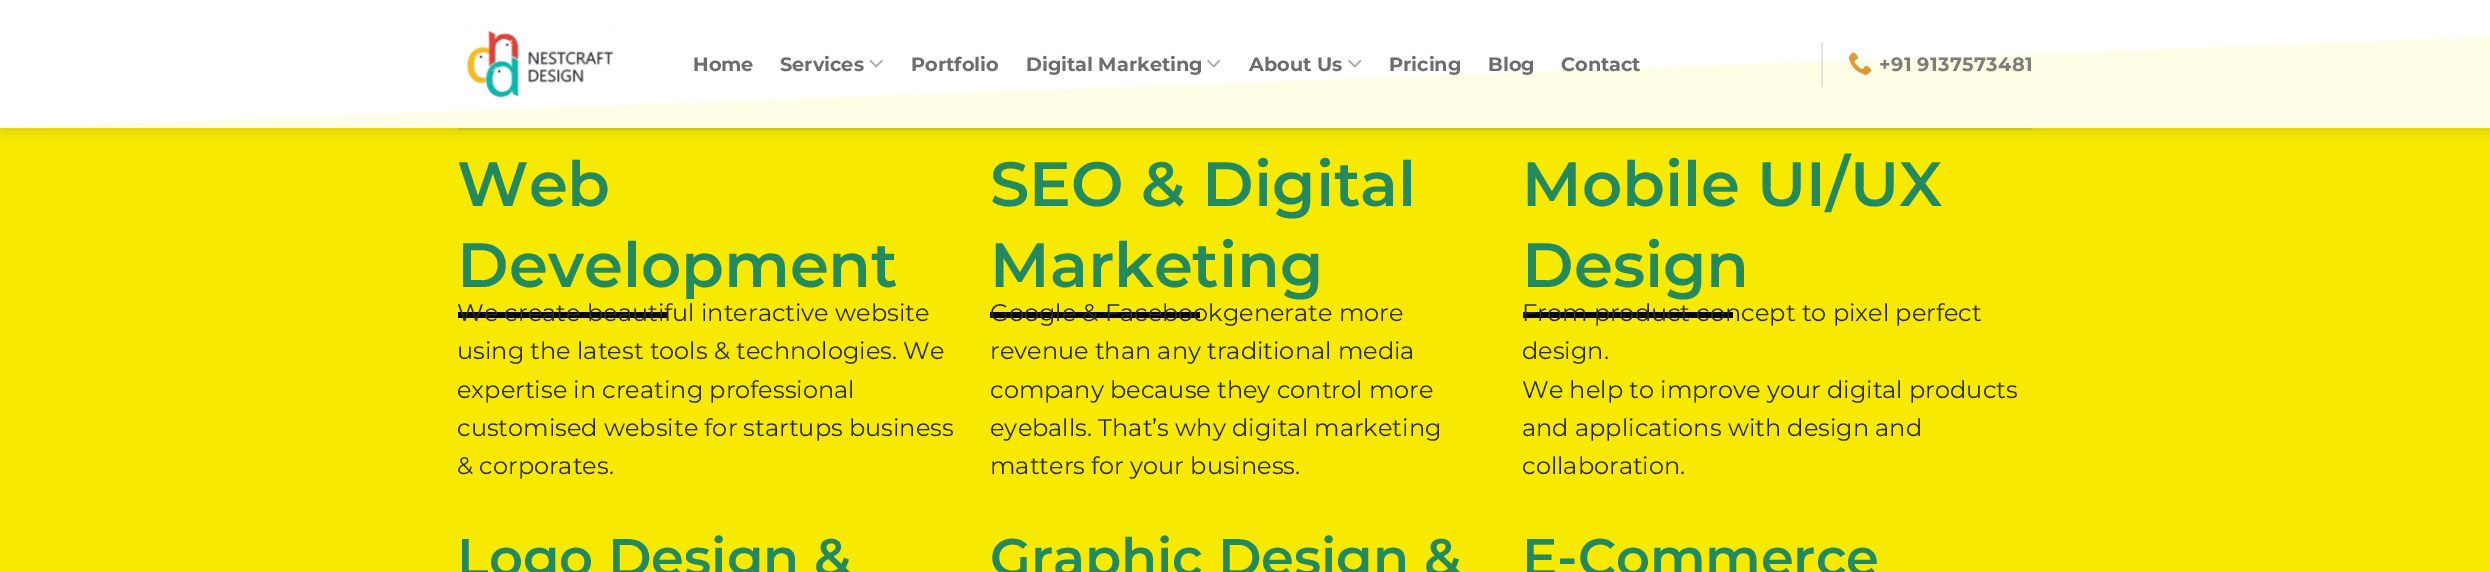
%!PS
<< /PageSize [2490 572] /PageUsesTransparency true >> setpagedevice
/rgb { dup -16 bitshift 255 div exch dup -8 bitshift 255 and 255 div exch 255 and 255 div setrgbcolor } def
/font { [ exch dup neg 0 0 3 -1 roll 0 0 ] selectfont } def
/text { moveto show } def
/alpha { dup .setfillconstantalpha .setstrokeconstantalpha } def
/roundrect { 5 dict begin { /r /h /w /y /x } { exch def } forall
  x r add y moveto x w add y 2 copy h add r arct x w add y h add x 1 index r arct
  x y h add x y r arct x y 2 copy exch w add exch r arct closepath end } def
/shadow { 12 dict begin { /a /b /q /h /w /y /x } { exch def } forall gsave /was 0 def
  9 -2 -9 { dup b mul 4 div /e exch def 1 sub .425 mul 2.718 exch exp 1 add a .99 .min exch div /now exch def
    1 1 now sub 1 was sub div sub alpha /was now def
    w h .min e 2 mul add 0 gt { x e sub y e sub w e 2 mul add h e 2 mul add
      q e add b .6 mul add w h .min 2 div e add .min 0 .max roundrect fill } if } for grestore end } def
/picture { 5 dict begin { /h /w /y /x /name } { exch def } forall
  gsave x y translate w h scale
  w h 8 [w 0 0 h 0 0] name (r) file false 3 colorimage grestore end } def
0 .pushpdf14devicefilter
0 572 translate 1 -1 scale
4 setmiterlimit
/s1 { /Montserrat-Bold 19.25 font 16#6D6D6D rgb } def
/s2 { /Montserrat-SemiBold 62.5 font 16#23895F rgb } def
/s3 { /Montserrat-Regular 24 font 16#2B2B2B rgb } def
/s4 { /Montserrat-SemiBold 52.75 font 16#23895F rgb } def
16#FFFFFF rgb
0 0 2490 572 rectfill
16#F7EA00 rgb
0 128 moveto 0 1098 lineto 2490 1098 lineto 2490 38 lineto 2476 38 lineto closepath fill
gsave
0 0 moveto 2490 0 lineto 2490 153 lineto 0 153 lineto closepath 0 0 moveto 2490 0 lineto 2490 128 lineto 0 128 lineto closepath eoclip newpath
16#000000 rgb
2 2 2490 127 0 7.5 0.15 shadow
grestore
0.9 alpha
16#FFFFFF rgb
0 38 2490 90 rectfill
1 alpha
(pic1.raw) 466 24 148 75 picture
s1
(Home) 693 71 text
(Services) 780 71 text
(pic2.raw) 869 59 14 9 picture
(Portfolio) 911 71 text
(Digital Marketing) 1026 71 text
(pic3.raw) 1207 59 14 9 picture
(About Us) 1249 71 text
(pic3.raw) 1348 59 14 9 picture
(Pricing) 1389 71 text
(Blog) 1488 71 text
(Contact) 1561 71 text
0.1 alpha
16#000000 rgb
1821 42 2 45 rectfill
1 alpha
(pic4.raw) 1848 52 24 23 picture
16#7D7D79 rgb
1879 71 moveto 0.4 0 (+91 9137573481) ashow
16#D2C704 rgb
458 128 1575 2 rectfill
s2
(Web) 457 206 text
(Development) 457 287 text
16#050505 rgb
458 312 210 6 rectfill
s3
(We create beautiful interactive website) 457 321 text
(using the latest tools & technologies. We) 457 359 text
(expertise in creating professional) 457 398 text
(customised website for startups business) 457 436 text
(& corporates.) 457 474 text
s2
(SEO & Digital) 990 206 text
(Marketing) 990 287 text
16#050505 rgb
990 312 210 6 rectfill
s3
(Google & Facebookgenerate more) 990 321 text
(revenue than any traditional media) 990 359 text
(company because they control more) 990 398 text
(eyeballs. That’s why digital marketing) 990 436 text
(matters for your business.) 990 474 text
s2
(Mobile UI/UX) 1522 206 text
(Design) 1522 287 text
16#050505 rgb
1523 312 210 6 rectfill
s3
(From product concept to pixel perfect) 1522 321 text
(design.) 1522 359 text
(We help to improve your digital products) 1522 398 text
(and applications with design and) 1522 436 text
(collaboration.) 1522 474 text
s4
(Logo Design &) 457 576 text
(Graphic Design &) 990 576 text
(E-Commerce) 1522 576 text
.poppdf14devicefilter showpage
